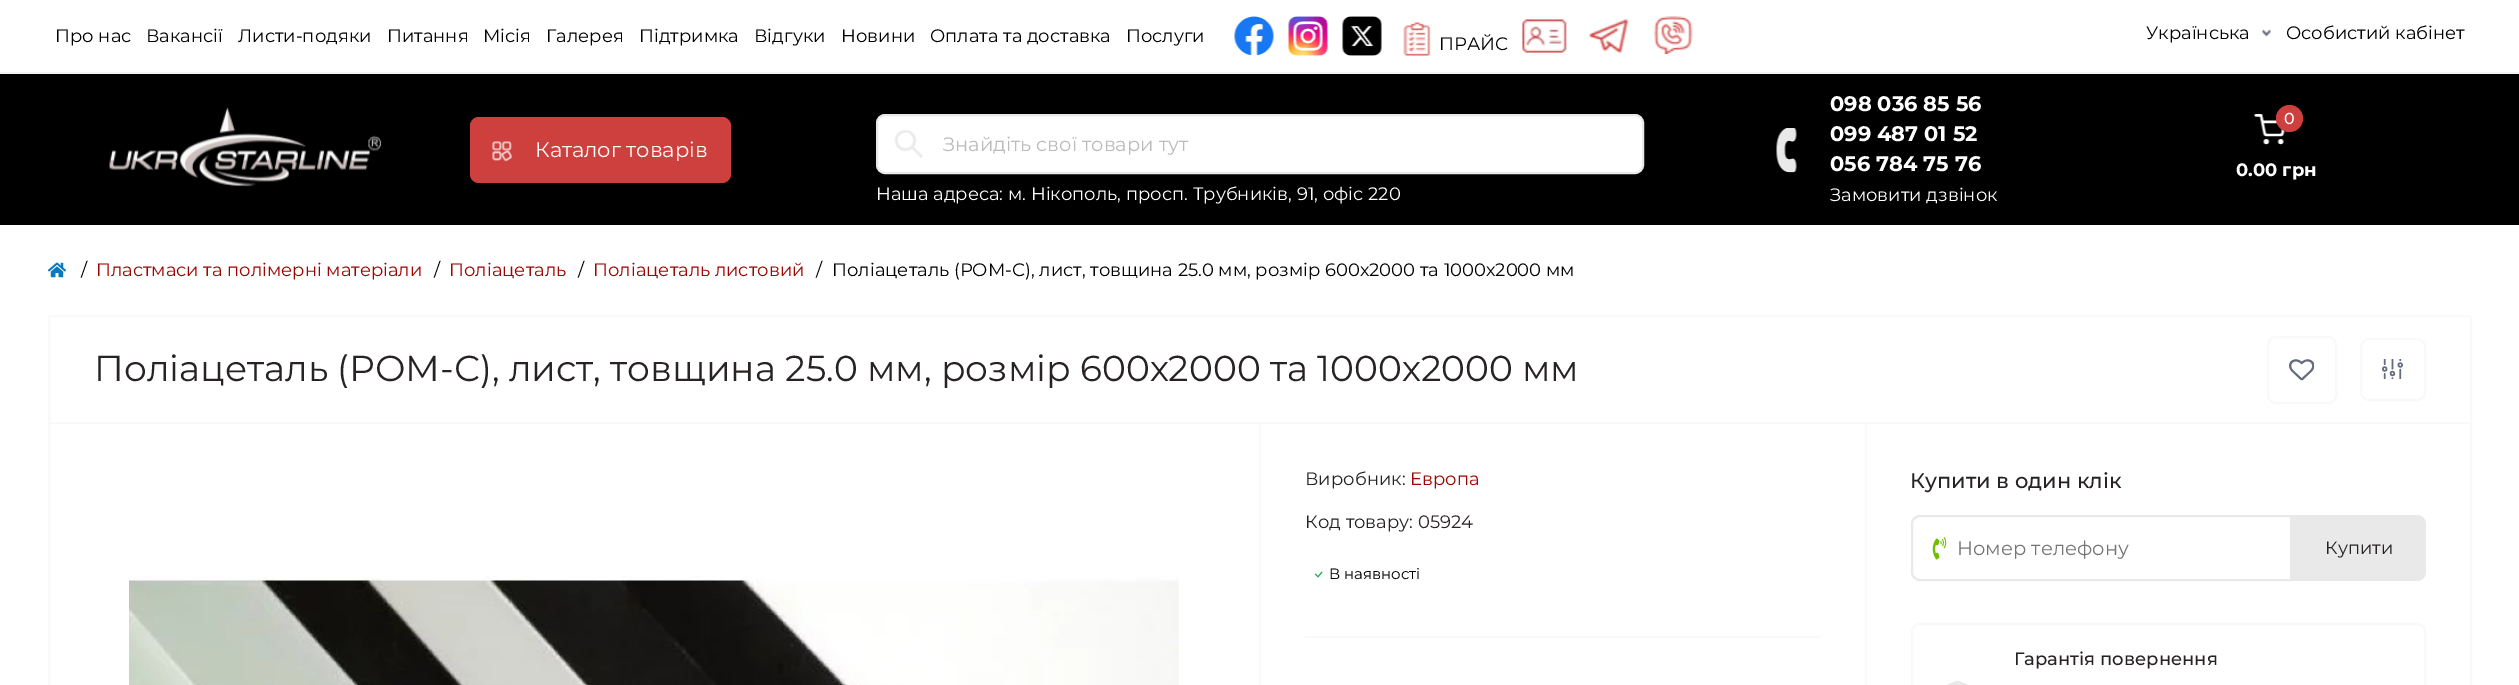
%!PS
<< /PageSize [2519 685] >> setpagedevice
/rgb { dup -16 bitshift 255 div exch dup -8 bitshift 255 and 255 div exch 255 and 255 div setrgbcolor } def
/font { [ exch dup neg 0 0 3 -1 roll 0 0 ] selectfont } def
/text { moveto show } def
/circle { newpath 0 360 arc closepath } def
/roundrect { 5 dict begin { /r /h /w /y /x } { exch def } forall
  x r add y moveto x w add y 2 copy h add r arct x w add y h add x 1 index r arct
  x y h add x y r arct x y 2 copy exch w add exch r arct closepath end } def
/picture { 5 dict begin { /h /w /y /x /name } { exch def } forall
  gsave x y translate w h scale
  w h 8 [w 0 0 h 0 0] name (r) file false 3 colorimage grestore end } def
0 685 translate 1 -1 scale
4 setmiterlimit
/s1 { /Montserrat-Regular 18 font 16#000000 rgb } def
/s2 { /Montserrat-Regular 21 font 16#FFFFFF rgb } def
/s3 { /Montserrat-Regular 19.5 font 16#BBBBBB rgb } def
/s4 { /Montserrat-Regular 18 font 16#FFFFFF rgb } def
/s5 { /Montserrat-Bold 21 font 16#FFFFFF rgb } def
/s6 { /Montserrat-Medium 16 font 16#FFFFFF rgb } def
/s7 { /Montserrat-Bold 18 font 16#FFFFFF rgb } def
/s8 { /Montserrat-Regular 18 font 16#9E0400 rgb } def
/s9 { /Montserrat-Regular 36 font 16#272323 rgb } def
/s10 { /Montserrat-Regular 18 font 16#272323 rgb } def
/s11 { /Montserrat-Regular 15 font 16#000000 rgb } def
/s12 { /Montserrat-Medium 21 font 16#272323 rgb } def
/s13 { /Montserrat-Regular 19.5 font 16#757575 rgb } def
/s14 { /Montserrat-Medium 18 font 16#272323 rgb } def
16#FFFFFF rgb
0 0 2519 685 rectfill
s1
(Про нас) 55 42 text
(Вакансії) 146 42 text
(Листи-подяки) 238 42 text
(Питання) 387 42 text
(Місія) 483 42 text
(Галерея) 546 42 text
(Підтримка) 639 42 text
(Відгуки) 754 42 text
(Новини) 841 42 text
(Оплата та доставка) 930 42 text
(Послуги) 1126 42 text
(pic1.raw) 1234 16 40 40 picture
(pic2.raw) 1288 16 40 40 picture
(pic3.raw) 1342 16 40 40 picture
(pic4.raw) 1403 22 28 34 picture
(ПРАЙС) 1439 50 text
(pic5.raw) 1522 19 45 34 picture
(pic6.raw) 1589 19 40 34 picture
(pic7.raw) 1653 16 40 38 picture
(Українська) 2146 39 text
(pic8.raw) 2262 29 9 8 picture
(Особистий кабінет) 2286 39 text
0 74 2519 151 rectfill
16#F3F3F3 rgb
0 72 2519 2 rectfill
(pic9.raw) 109 107 273 80 picture
16#CD403E rgb
470 117 261 66 9 roundrect fill
(pic10.raw) 492 141 21 21 picture
s2
(Каталог товарів) 535 157 text
877 115 766 58 8 roundrect gsave fill grestore
16#E9E9E9 rgb
2 setlinewidth
stroke
(pic11.raw) 894 129 29 29 picture
s3
(Знайдіть свої товари тут) 943 151 text
s4
(Наша адреса: м. Нікополь, просп. Трубників, 91, офіс 220) 876 200 text
(pic12.raw) 1776 128 21 45 picture
s5
(098 036 85 56) 1830 111 text
(099 487 01 52) 1830 141 text
(056 784 75 76) 1830 171 text
s4
(Замовити дзвінок) 1830 201 text
(pic13.raw) 2254 114 31 31 picture
16#CD403E rgb
2289.5 118.5 13.5 circle fill
s6
(0) 2284 124 text
s7
(0.00 грн) 2236 176 text
(pic14.raw) 48 262 18 16 picture
s1
(/) 81 276 text
s8
(Пластмаси та полімерні матеріали) 96 276 text
s1
(/) 434 276 text
s8
(Поліацеталь) 449 276 text
s1
(/) 578 276 text
s8
(Поліацеталь листовий) 593 276 text
s1
(/) 816 276 text
(Поліацеталь \(РОМ-С\), лист, товщина 25.0 мм, розмір 600х2000 та 1000х2000 мм) 832 276 text
16#F9F9FC rgb
49 316 2422 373 2 roundrect stroke
50 422 2421 2 rectfill
s9
(Поліацеталь \(РОМ-С\), лист, товщина 25.0 мм, розмір 600х2000 та 1000х2000 мм) 94 381 text
16#F9F9FC rgb
2268 337 68 66 8 roundrect stroke
(pic15.raw) 2289 359 26 22 picture
2361 339 64 61 8 roundrect stroke
(pic16.raw) 2382 359 21 21 picture
1259 423 2 262 rectfill
(pic17.raw) 129 576 1050 109 picture
1865 423 2 262 rectfill
16#F9F9F9 rgb
1305 636 515 2 rectfill
s10
(Виробник:) 1305 485 text
s8
(Европа) 1410 485 text
s10
(Код товару: 05924) 1305 528 text
(pic18.raw) 1314 571 9 7 picture
s11
(В наявності) 1329 579 text
s12
(Купити в один клік) 1910 488 text
(pic19.raw) 1932 537 15 23 picture
16#E9E9E9 rgb
1920 516 moveto 2291 516 lineto 2291 580 lineto 1920 580 lineto 1915.5 580 1912 576.5 1912 572 curveto 1912 524 lineto 1912 519.5 1915.5 516 1920 516 curveto closepath stroke
s13
(Номер телефону) 1957 555 text
16#E9E9E9 rgb
2292 515 moveto 2417 515 lineto 2422 515 2426 519 2426 524 curveto 2426 572 lineto 2426 577 2422 581 2417 581 curveto 2292 581 lineto closepath fill
s10
(Купити) 2325 554 text
16#F9F9FC rgb
1912 624 513 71 8 roundrect stroke
s14
(Гарантія повернення) 2014 665 text
(pic20.raw) 1947 680 21 5 picture
showpage
